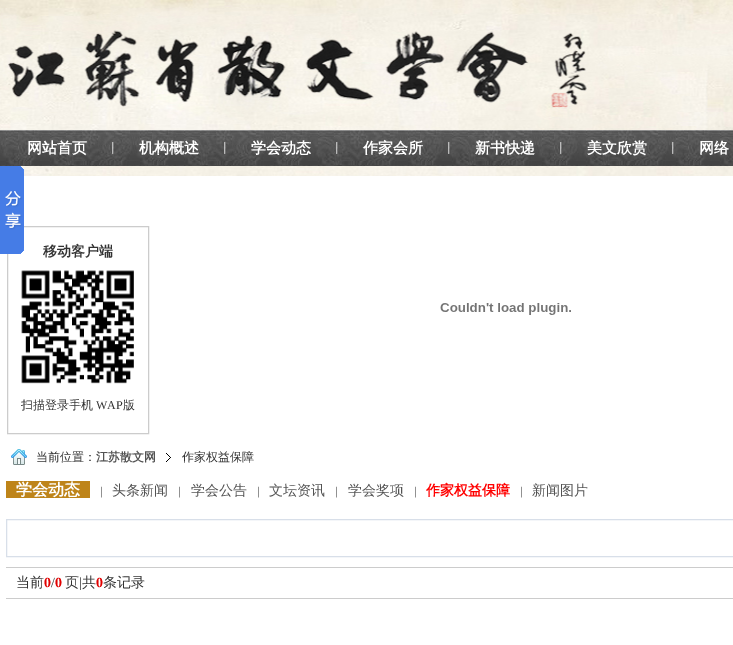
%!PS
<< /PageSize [733 645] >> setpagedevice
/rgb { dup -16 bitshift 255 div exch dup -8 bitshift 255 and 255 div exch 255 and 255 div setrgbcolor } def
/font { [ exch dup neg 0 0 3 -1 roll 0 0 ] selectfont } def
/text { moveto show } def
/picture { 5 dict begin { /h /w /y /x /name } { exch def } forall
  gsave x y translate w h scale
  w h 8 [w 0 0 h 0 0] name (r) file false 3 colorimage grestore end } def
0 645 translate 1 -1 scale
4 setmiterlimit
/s1 { /WenQuanYiZenHei-Bold 15 font 16#FFFFFF rgb } def
/s2 { /WenQuanYiZenHei-Bold 14 font 16#333333 rgb } def
/s3 { /WenQuanYiZenHei-Medium 12 font 16#333333 rgb } def
/s4 { /LiberationSerif-Regular 12 font 16#333333 rgb } def
/s5 { /WenQuanYiZenHei-Bold 12 font 16#535353 rgb } def
/s6 { /WenQuanYiZenHei-Bold 16 font 16#FFFFFF rgb } def
/s7 { /WenQuanYiZenHei-Medium 14 font 16#535353 rgb } def
/s8 { /WenQuanYiZenHei-Bold 14 font 16#FF0000 rgb } def
/s9 { /WenQuanYiZenHei-Medium 14 font 16#333333 rgb } def
/s10 { /LiberationSerif-Bold 14 font 16#E10000 rgb } def
/s11 { /LiberationSerif-Regular 14 font 16#333333 rgb } def
16#FFFFFF rgb
0 0 733 645 rectfill
(pic1.raw) 0 0 733 176 picture
16#CCCCCC rgb
7.5 226.5 141 207 rectstroke
(pic2.raw) 0 166 24 88 picture
(pic3.raw) 0 130 733 36 picture
(pic4.raw) 112 142 2 12 picture
s1
(网站首页) 27 153 text
(pic4.raw) 224 142 2 12 picture
(机构概述) 139 153 text
(pic4.raw) 336 142 2 12 picture
(学会动态) 251 153 text
(pic4.raw) 448 142 2 12 picture
(作家会所) 363 153 text
(pic4.raw) 560 142 2 12 picture
(新书快递) 475 153 text
(pic4.raw) 672 142 2 12 picture
(美文欣赏) 587 153 text
(网络) 699 153 text
s2
(移动客户端) 43 256 text
(pic5.raw) 21 270 113 114 picture
s3
(扫描登录手机) 21 409 text
s4
(WAP) 96 409 text
s3
(版) 123 409 text
(pic6.raw) 440 303 131 12 picture
(pic7.raw) 11 449 16 16 picture
(当前位置：) 36 461 text
s5
(江苏散文网) 96 461 text
(pic8.raw) 166 453 5 9 picture
s3
(作家权益保障) 182 461 text
16#BE8419 rgb
6 481 84 17 rectfill
s6
(学会动态) 16 495 text
s4
(|) 100 495 text
s7
(头条新闻) 112 495 text
s4
(|) 178 495 text
s7
(学会公告) 191 495 text
s4
(|) 257 495 text
s7
(文坛资讯) 269 495 text
s4
(|) 335 495 text
s7
(学会奖项) 348 495 text
s4
(|) 414 495 text
s8
(作家权益保障) 426 495 text
s4
(|) 520 495 text
s7
(新闻图片) 532 495 text
16#D8DFE9 rgb
6.5 519.5 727 37 rectstroke
16#CCCCCC rgb
6 567 727 1 rectfill
6 598 727 1 rectfill
s9
(当前) 16 587 text
s10
(0) 44 587 text
s11
(/) 51 587 text
s10
(0) 55 587 text
s9
(页) 65 587 text
s11
(|) 79 587 text
s9
(共) 82 587 text
s10
(0) 96 587 text
s9
(条记录) 103 587 text
showpage
